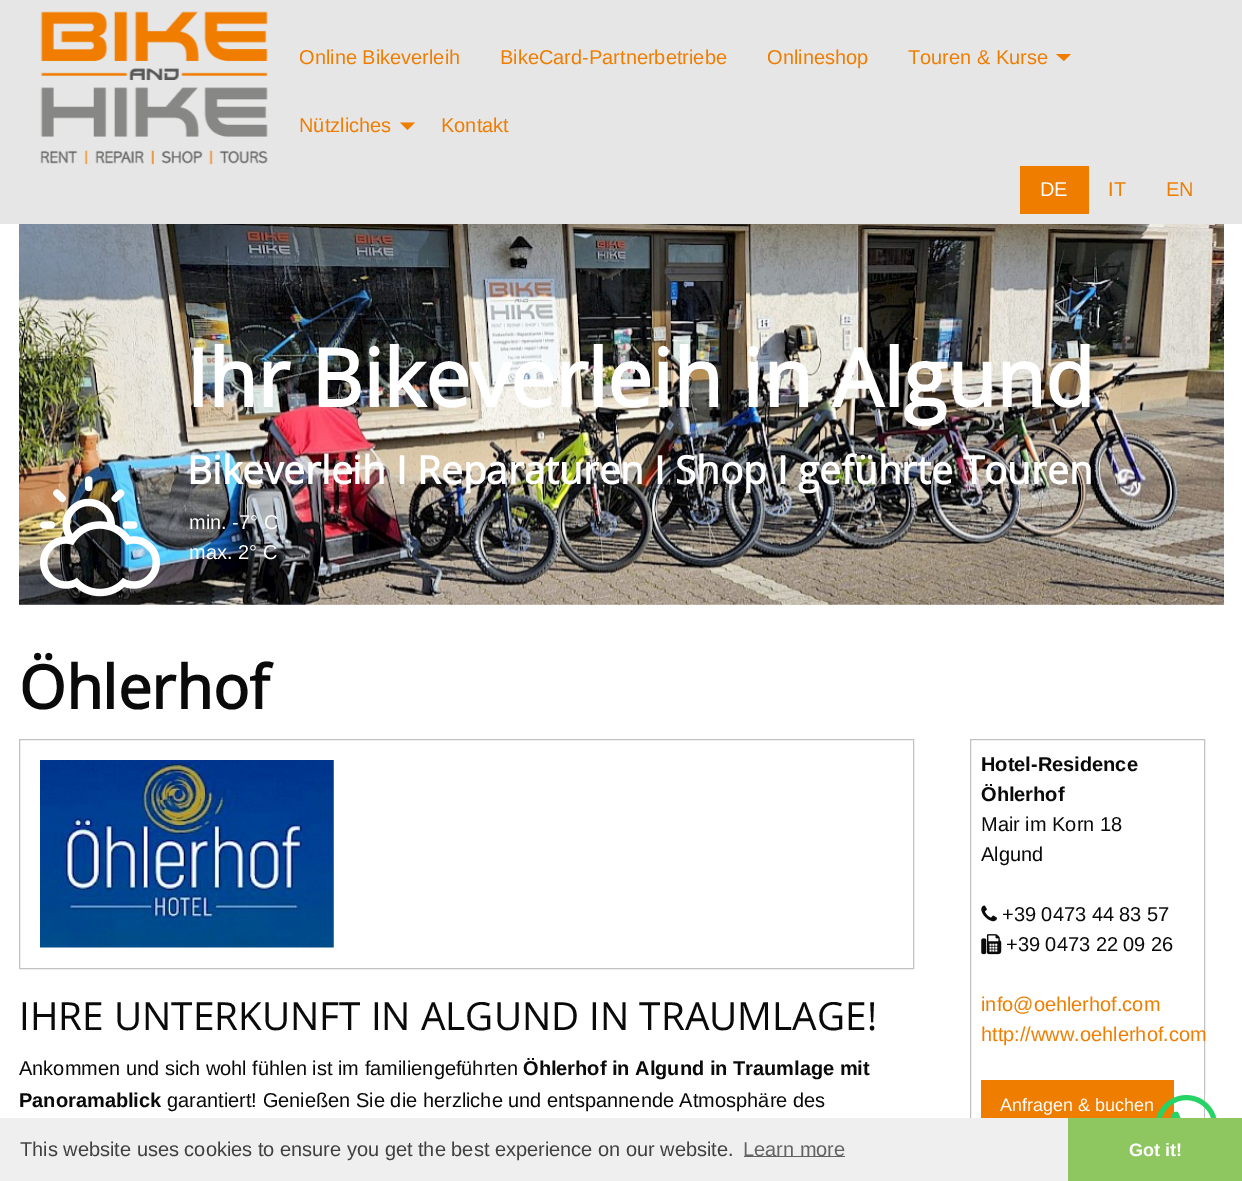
%!PS
<< /PageSize [1242 1181] >> setpagedevice
/rgb { dup -16 bitshift 255 div exch dup -8 bitshift 255 and 255 div exch 255 and 255 div setrgbcolor } def
/font { [ exch dup neg 0 0 3 -1 roll 0 0 ] selectfont } def
/text { moveto show } def
/picture { 5 dict begin { /h /w /y /x /name } { exch def } forall
  gsave x y translate w h scale
  w h 8 [w 0 0 h 0 0] name (r) file false 3 colorimage grestore end } def
0 1181 translate 1 -1 scale
4 setmiterlimit
/s1 { /LiberationSans-Regular 20 font 16#EF7D00 rgb } def
/s2 { /LiberationSans-Regular 20 font 16#FFFFFF rgb } def
/s3 { /OpenSans-Bold 80 font 16#FFFFFF rgb } def
/s4 { /OpenSans-Bold 38.75 font 16#FFFFFF rgb } def
/s5 { /OpenSans-Bold 60 font 16#0A0A0A rgb } def
/s6 { /OpenSans-Regular 38.75 font 16#0A0A0A rgb } def
/s7 { /LiberationSans-Regular 20 font 16#0A0A0A rgb } def
/s8 { /LiberationSans-Bold 20 font 16#0A0A0A rgb } def
/s9 { /LiberationSans-Regular 18 font 16#FFFFFF rgb } def
/s10 { /LiberationSans-Regular 20 font 16#404040 rgb } def
/s11 { /LiberationSans-Regular 20 font 16#636363 rgb } def
/s12 { /LiberationSans-Bold 18 font 16#FFFFFF rgb } def
16#FFFFFF rgb
0 0 1242 1181 rectfill
16#E6E6E6 rgb
0 0 1242 224 rectfill
(pic1.raw) 40 11 228 154 picture
s1
(Online Bikeverleih) 299 64 text
(BikeCard-Partnerbetriebe) 500 64 text
(Onlineshop) 767 64 text
(Touren & Kurse) 908 64 text
1056 54 moveto 1071 54 lineto 1064 61 lineto closepath fill
(Nützliches) 299 132 text
400 122.5 moveto 415 122.5 lineto 407.5 130 lineto closepath fill
(Kontakt) 441 132 text
1020 166 69 48 rectfill
s2
(DE) 1040 196 text
s1
(IT) 1108 196 text
(EN) 1166 196 text
(pic2.raw) 19 224 1205 381 picture
s3
(Ihr Bikeverleih in Algund) 186 407 text
s4
(Bikeverleih I Reparaturen I Shop I geführte Touren) 187 484 text
(pic3.raw) 40 476 120 121 picture
s2
(min. -7° C) 189 529 text
(max. 2° C) 189 559 text
s5
(Öhlerhof) 19 709 text
16#C2C2C2 rgb
19.5 739.5 894 229 rectstroke
(pic4.raw) 40 760 294 188 picture
s6
(IHRE UNTERKUNFT IN ALGUND IN TRAUMLAGE!) 19 1030 text
s7
(Ankommen und sich wohl fühlen ist im familiengeführten) 19 1075 text
s8
(Öhlerhof in Algund in Traumlage mit) 523 1075 text
(Panoramablick) 19 1107 text
s7
(garantiert! Genießen Sie die herzliche und entspannende Atmosphäre des) 167 1107 text
16#C2C2C2 rgb
970.5 739.5 234 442 rectstroke
s8
(Hotel-Residence) 981 771 text
(Öhlerhof) 981 801 text
s7
(Mair im Korn 18) 981 831 text
(Algund) 981 861 text
(pic5.raw) 981 905 16 17 picture
(+39 0473 44 83 57) 1002 921 text
(pic6.raw) 981 934 21 21 picture
(+39 0473 22 09 26) 1006 951 text
s1
(info@oehlerhof.com) 981 1011 text
(http://www.oehlerhof.com) 981 1041 text
981 1080 193 38 rectfill
s9
(Anfragen & buchen) 1000 1111 text
(pic7.raw) 1156 1095 61 23 picture
16#EFEFEF rgb
0 1118 1068 63 rectfill
s10
(This website uses cookies to ensure you get the best experience on our website.) 20 1156 text
16#636363 rgb
744 1156 101 1 rectfill
(Learn more) 743 1156 text
16#8EC760 rgb
1068 1118 174 63 rectfill
s12
(Got it!) 1129 1156 text
showpage
